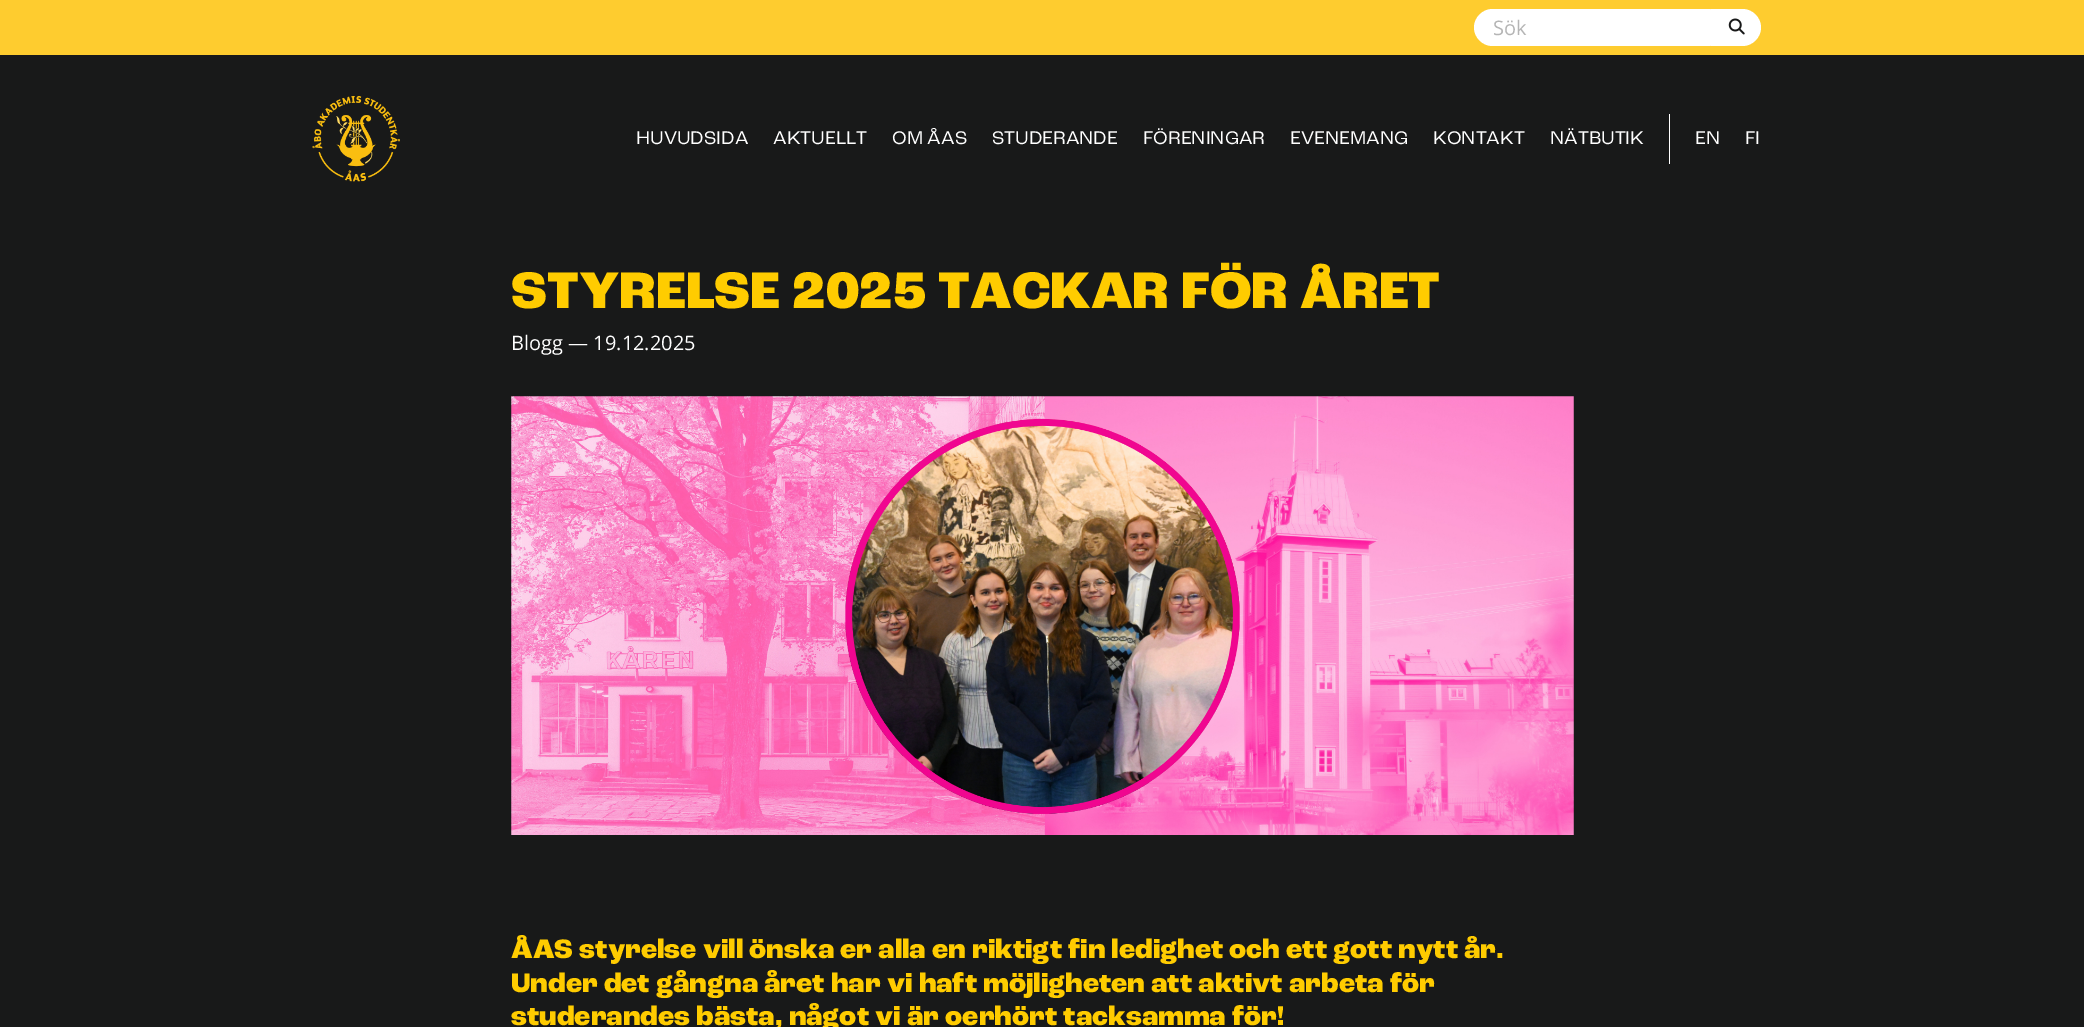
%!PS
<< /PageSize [2084 1027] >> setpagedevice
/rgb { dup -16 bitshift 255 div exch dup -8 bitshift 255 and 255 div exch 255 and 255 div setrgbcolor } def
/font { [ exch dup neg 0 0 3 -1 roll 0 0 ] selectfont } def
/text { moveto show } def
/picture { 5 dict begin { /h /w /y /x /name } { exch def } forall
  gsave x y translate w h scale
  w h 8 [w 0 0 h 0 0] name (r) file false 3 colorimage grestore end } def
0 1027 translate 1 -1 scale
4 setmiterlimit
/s1 { /OpenSans-Regular 20 font 16#B5B5B5 rgb } def
/s2 { /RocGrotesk-Regular 19.25 font 16#FFFFFF rgb } def
/s3 { /RocGrotesk-ExtraBold 54 font 16#FFCC00 rgb } def
/s4 { /OpenSans-Regular 20 font 16#FFFFFF rgb } def
/s5 { /RocGrotesk-ExtraBold 28 font 16#FFCC00 rgb } def
16#181919 rgb
0 0 2084 1027 rectfill
16#FECC2F rgb
0 0 2084 55 rectfill
16#FFFFFF rgb
1492.5 9 moveto 1710 9 lineto 1710.5 9 1711 9.5 1711 10 curveto 1711 45 lineto 1711 45.5 1710.5 46 1710 46 curveto 1492.5 46 lineto 1482.5 46 1474 37.5 1474 27.5 curveto 1474 17.5 1482.5 9 1492.5 9 curveto closepath fill
s1
(Sök) 1493 35 text
16#FFFFFF rgb
1711 9 moveto 1742.5 9 lineto 1752.5 9 1761 17.5 1761 27.5 curveto 1761 37.5 1752.5 46 1742.5 46 curveto 1711 46 lineto closepath fill
(pic1.raw) 1728 18 17 17 picture
(pic2.raw) 312 96 88 86 picture
s2
(HUVUDSIDA) 636 144 text
(AKTUELLT) 773 144 text
(OM ÅAS) 892 144 text
(STUDERANDE) 992 144 text
(FÖRENINGAR) 1143 144 text
(EVENEMANG) 1290 144 text
(KONTAKT) 1433 144 text
(NÄTBUTIK) 1550 144 text
1669 114 1 50 rectfill
(EN) 1695 144 text
(FI) 1745 144 text
s3
(STYRELSE 2025 TACKAR FÖR ÅRET) 511 308 text
s4
(Blogg — 19.12.2025) 511 350 text
(pic3.raw) 511 396 1063 439 picture
s5
(ÅAS styrelse vill önska er alla en riktigt fin ledighet och ett gott nytt år.) 511 958 text
(Under det gångna året har vi haft möjligheten att aktivt arbeta för) 511 992 text
(studerandes bästa, något vi är oerhört tacksamma för!) 511 1025 text
showpage
